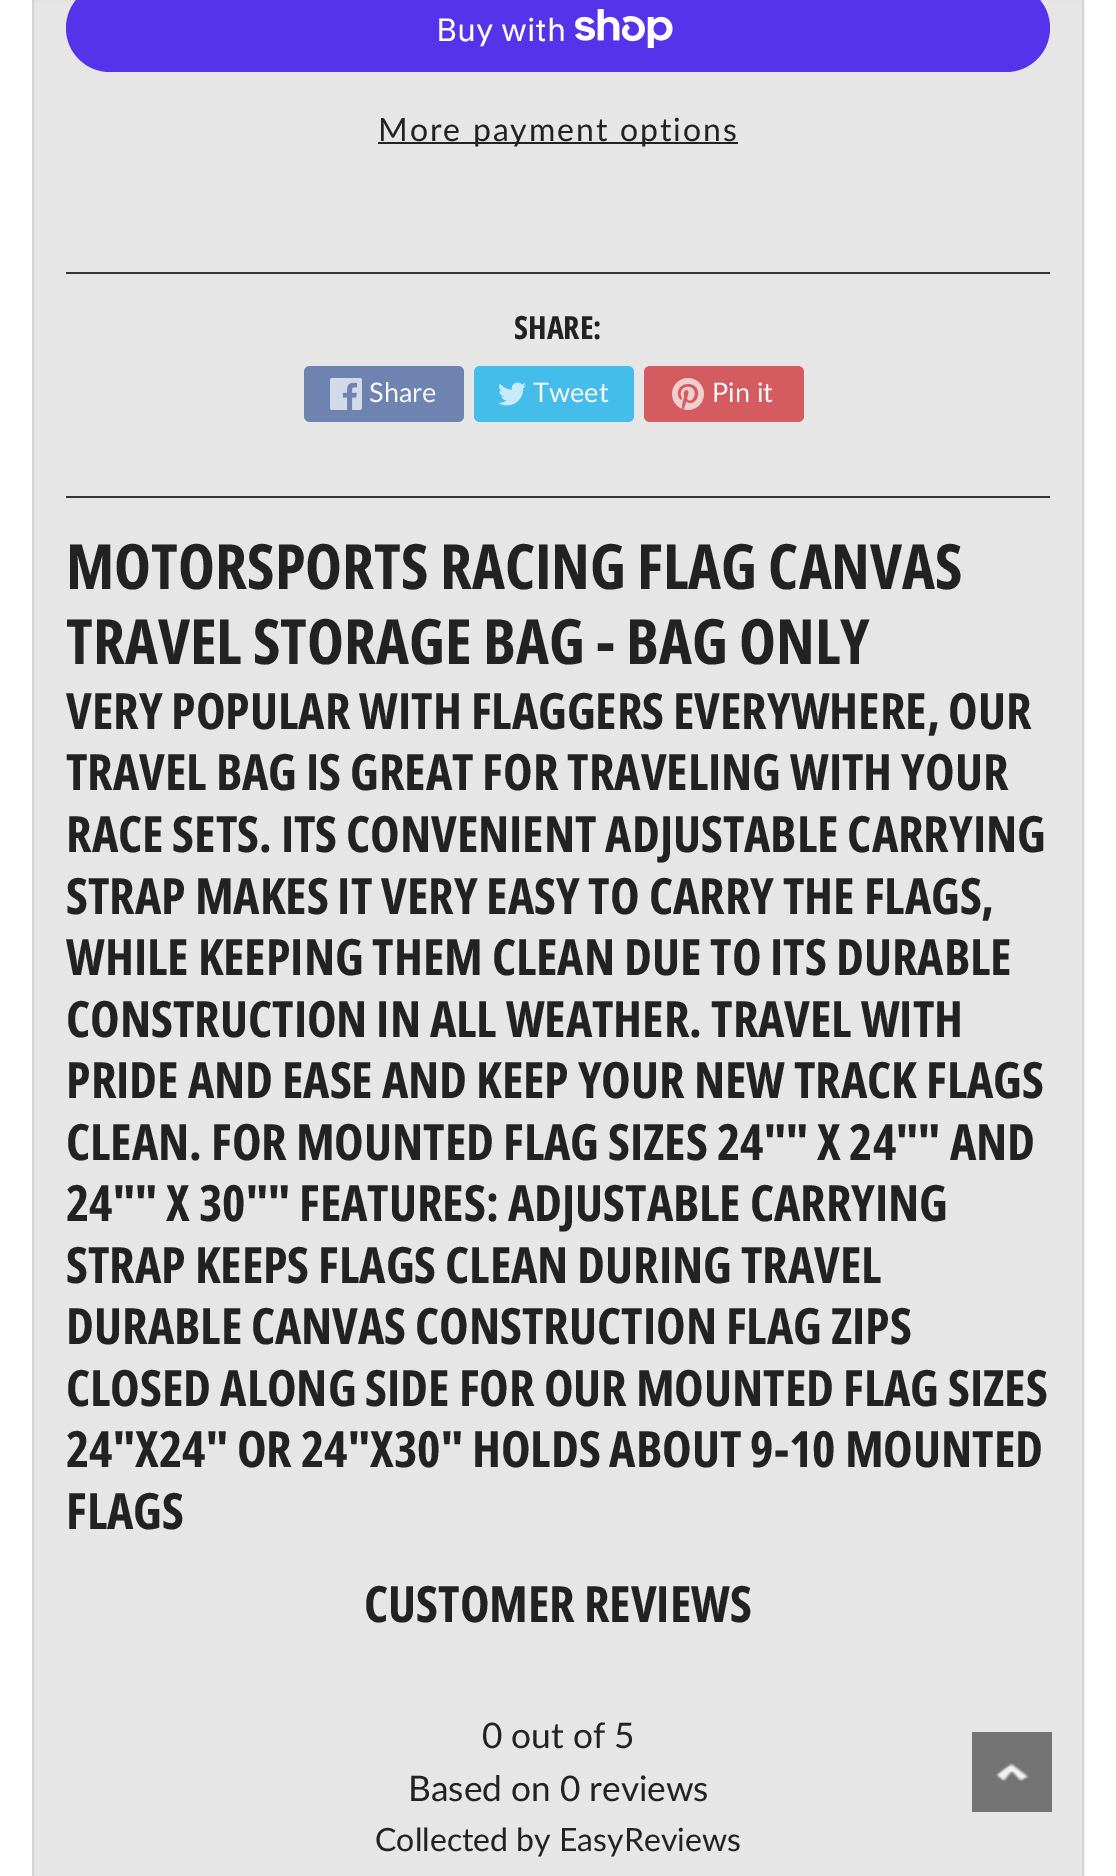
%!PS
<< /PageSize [1116 1876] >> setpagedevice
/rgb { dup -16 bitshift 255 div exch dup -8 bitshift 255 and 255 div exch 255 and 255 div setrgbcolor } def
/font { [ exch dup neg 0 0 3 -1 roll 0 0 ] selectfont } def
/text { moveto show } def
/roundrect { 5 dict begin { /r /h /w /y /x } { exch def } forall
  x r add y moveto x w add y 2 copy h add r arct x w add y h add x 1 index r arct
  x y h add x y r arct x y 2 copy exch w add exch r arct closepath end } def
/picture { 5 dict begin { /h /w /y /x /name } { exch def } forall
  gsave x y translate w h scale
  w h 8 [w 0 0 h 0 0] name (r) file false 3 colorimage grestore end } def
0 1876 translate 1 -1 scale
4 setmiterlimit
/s1 { /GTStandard-Regular 32 font 16#FFFFFF rgb } def
/s2 { /OpenSansCondensed-Bold 32 font 16#222222 rgb } def
/s3 { /Lato-Regular 27 font 16#F8F8F8 rgb } def
/s4 { /OpenSansCondensed-Bold 62.5 font 16#222222 rgb } def
/s5 { /OpenSansCondensed-Bold 50 font 16#222222 rgb } def
/s6 { /Lato-Regular 35.25 font 16#222222 rgb } def
/s7 { /Lato-Regular 32 font 16#222222 rgb } def
16#FFFFFF rgb
0 0 1116 1876 rectfill
16#E6E6E6 rgb
33 -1 moveto 1083 -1 lineto 1083 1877 lineto 33 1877 lineto closepath gsave fill grestore
16#D4D4D4 rgb
2 setlinewidth
stroke
16#5433EB rgb
66 -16 984 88 44 roundrect fill
s1
(Buy with) 436 41 text
(pic1.raw) 575 9 98 39 picture
16#222222 rgb
378 142 360 2 rectfill
/Lato-Regular 32 font
378 141 moveto 2 0 (More payment options) ashow
16#333333 rgb
66 272 984 2 rectfill
s2
(SHARE:) 514 339 text
16#6E83AF rgb
304 366 160 56 6 roundrect fill
(pic2.raw) 330 378 32 32 picture
s3
(Share) 369 402 text
16#45BDEB rgb
474 366 160 56 6 roundrect fill
(pic3.raw) 498 382 28 24 picture
s3
(Tweet) 533 402 text
16#D45C60 rgb
644 366 160 56 6 roundrect fill
(pic4.raw) 672 378 32 32 picture
s3
(Pin it) 712 402 text
16#333333 rgb
66 496 984 2 rectfill
s4
(MOTORSPORTS RACING FLAG CANVAS) 66 589 text
(TRAVEL STORAGE BAG - BAG ONLY) 66 664 text
s5
(VERY POPULAR WITH FLAGGERS EVERYWHERE, OUR) 66 729 text
(TRAVEL BAG IS GREAT FOR TRAVELING WITH YOUR) 66 790 text
(RACE SETS. ITS CONVENIENT ADJUSTABLE CARRYING) 66 852 text
(STRAP MAKES IT VERY EASY TO CARRY THE FLAGS,) 66 914 text
(WHILE KEEPING THEM CLEAN DUE TO ITS DURABLE) 66 975 text
(CONSTRUCTION IN ALL WEATHER. TRAVEL WITH) 66 1037 text
(PRIDE AND EASE AND KEEP YOUR NEW TRACK FLAGS) 66 1098 text
(CLEAN. FOR MOUNTED FLAG SIZES 24"" X 24"" AND) 66 1160 text
(24"" X 30"" FEATURES: ADJUSTABLE CARRYING) 66 1221 text
(STRAP KEEPS FLAGS CLEAN DURING TRAVEL) 66 1283 text
(DURABLE CANVAS CONSTRUCTION FLAG ZIPS) 66 1344 text
(CLOSED ALONG SIDE FOR OUR MOUNTED FLAG SIZES) 66 1406 text
(24"X24" OR 24"X30" HOLDS ABOUT 9-10 MOUNTED) 66 1467 text
(FLAGS) 66 1529 text
(CUSTOMER REVIEWS) 364 1622 text
s6
(0 out of 5) 482 1748 text
(Based on 0 reviews) 408 1801 text
s7
(Collected by EasyReviews) 375 1851 text
(pic5.raw) 972 1732 80 80 picture
showpage
